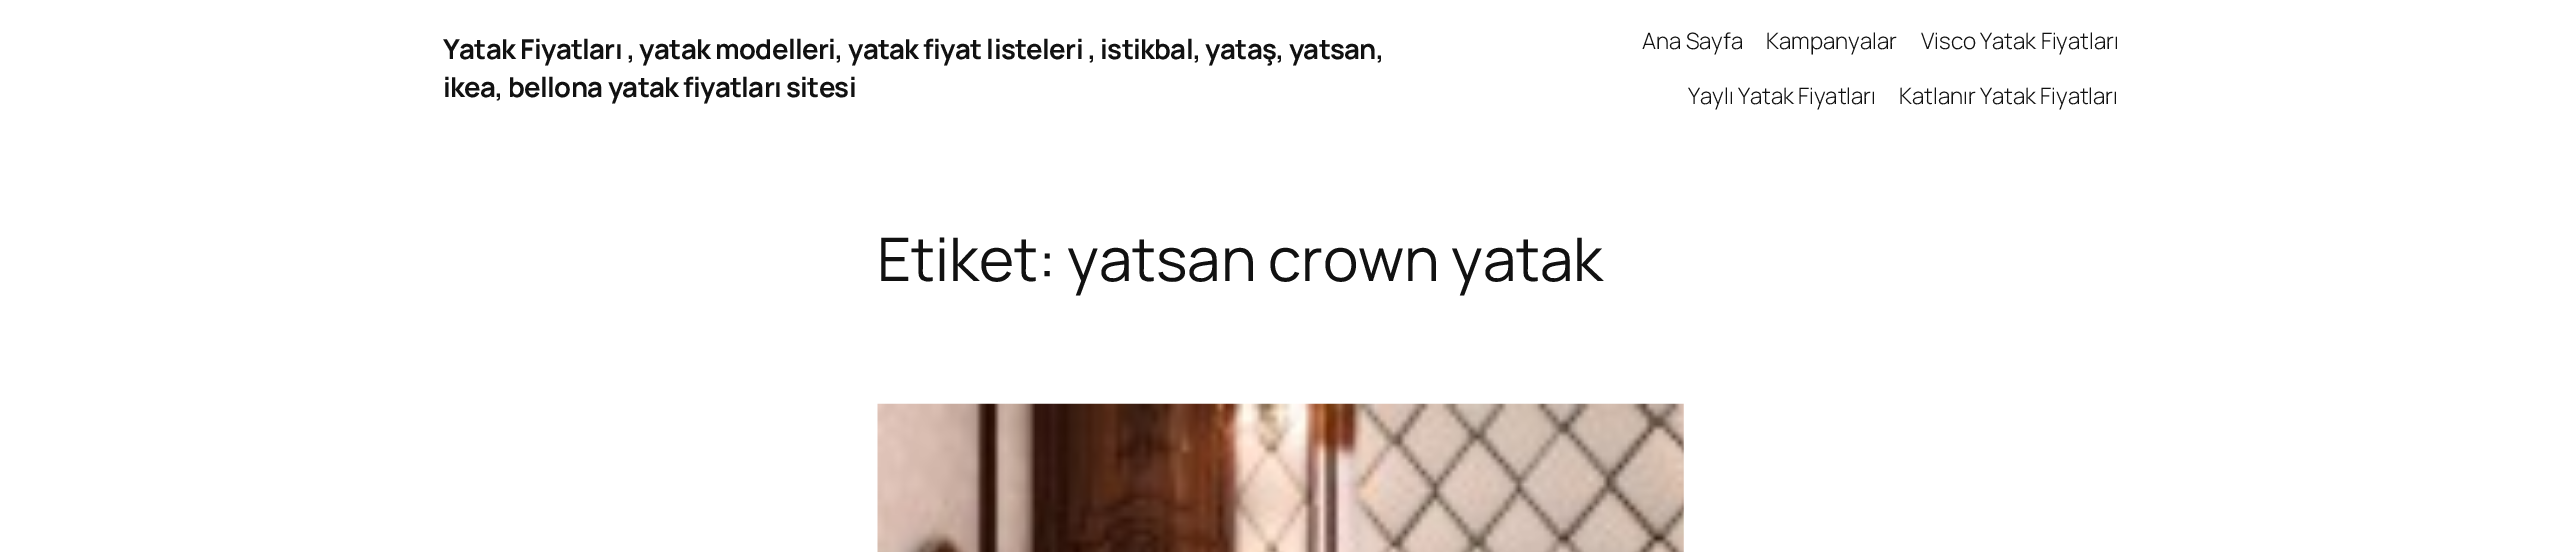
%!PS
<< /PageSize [2560 552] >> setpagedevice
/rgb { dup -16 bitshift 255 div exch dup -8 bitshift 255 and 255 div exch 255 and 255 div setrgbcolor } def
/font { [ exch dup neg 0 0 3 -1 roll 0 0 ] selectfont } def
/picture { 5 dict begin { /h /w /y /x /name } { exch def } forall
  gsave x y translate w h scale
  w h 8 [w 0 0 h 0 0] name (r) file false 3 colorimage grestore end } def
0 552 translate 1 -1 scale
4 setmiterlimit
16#FFFFFF rgb
0 0 2560 552 rectfill
/Manrope-Bold 27.5 font
16#111111 rgb
443 59 moveto -0.62 0 (Yatak Fiyatları , yatak modelleri, yatak fiyat listeleri , istikbal, yataş, yatsan,) ashow
443 97 moveto -0.62 0 (ikea, bellona yatak fiyatları sitesi) ashow
/Manrope-Light 22.5 font
1642 49 moveto -0.1 0 (Ana Sayfa) ashow
1766 49 moveto -0.1 0 (Kampanyalar) ashow
1921 49 moveto -0.1 0 (Visco Yatak Fiyatları) ashow
1688 104 moveto -0.1 0 (Yaylı Yatak Fiyatları) ashow
1899 104 moveto -0.1 0 (Katlanır Yatak Fiyatları) ashow
/Manrope-Regular 60 font
877 281 moveto -0.1 0 (Etiket: yatsan crown yatak) ashow
(pic1.raw) 877 403 807 149 picture
showpage
